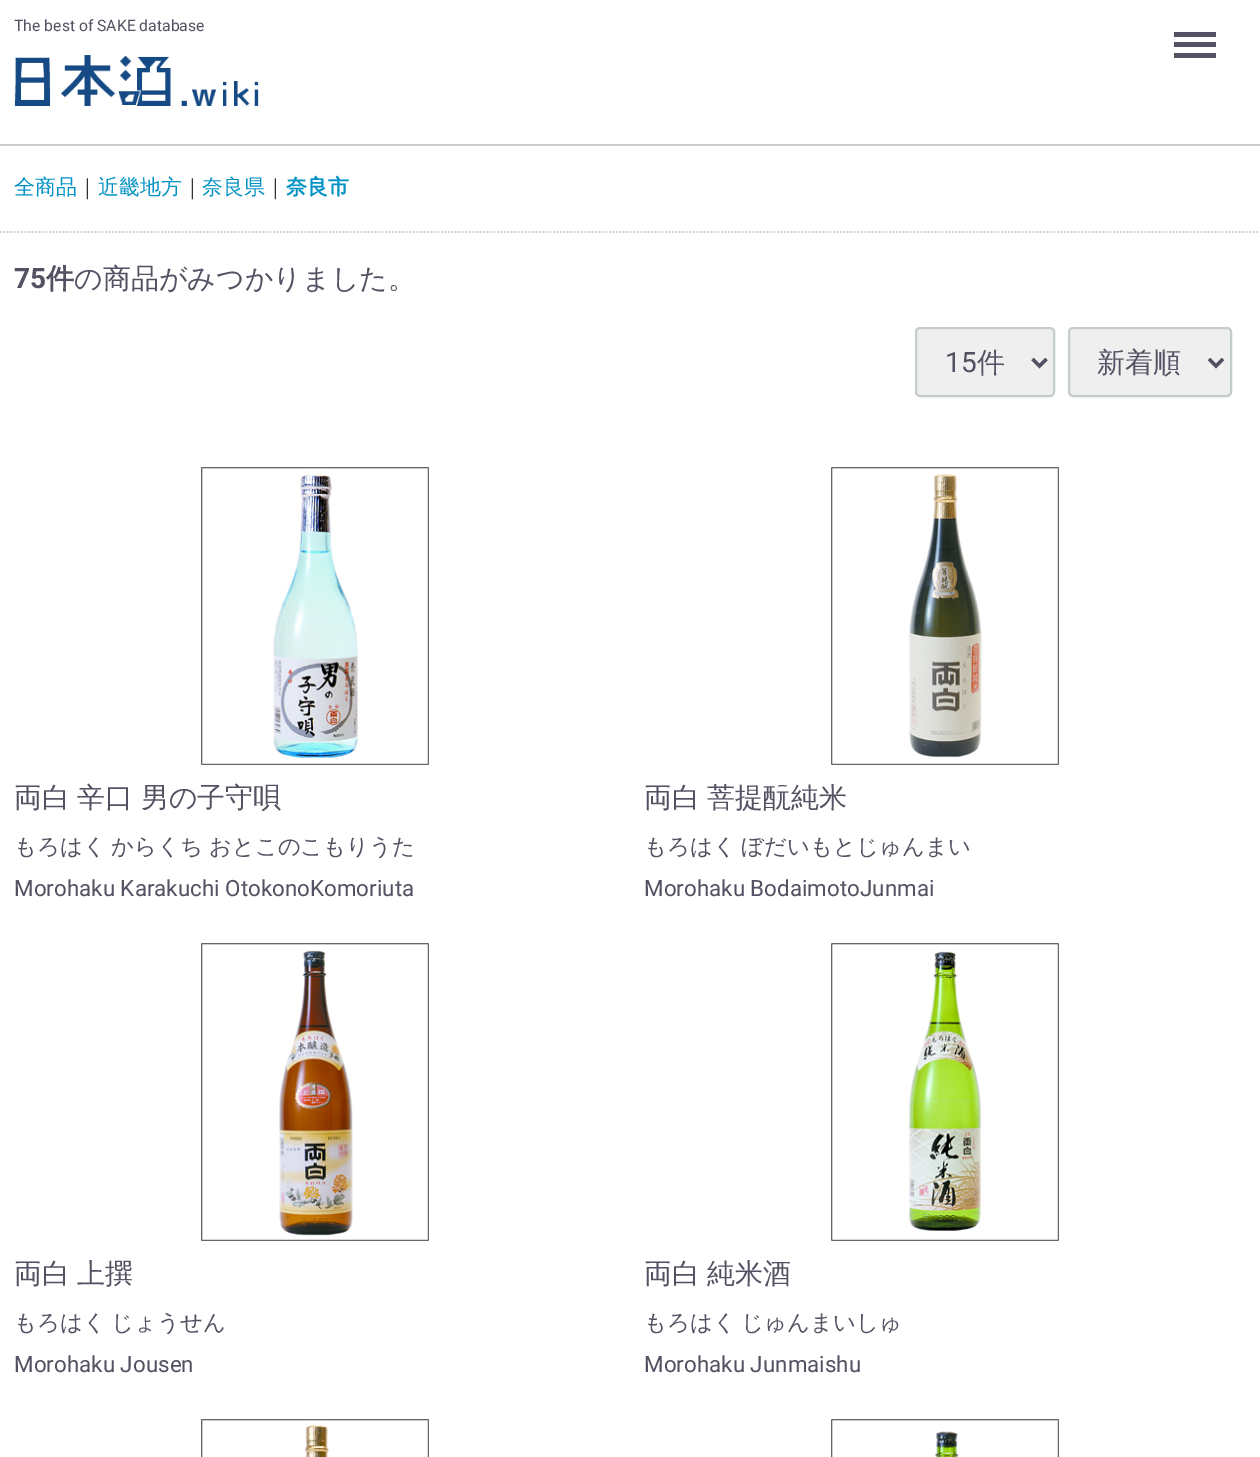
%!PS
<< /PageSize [1260 1457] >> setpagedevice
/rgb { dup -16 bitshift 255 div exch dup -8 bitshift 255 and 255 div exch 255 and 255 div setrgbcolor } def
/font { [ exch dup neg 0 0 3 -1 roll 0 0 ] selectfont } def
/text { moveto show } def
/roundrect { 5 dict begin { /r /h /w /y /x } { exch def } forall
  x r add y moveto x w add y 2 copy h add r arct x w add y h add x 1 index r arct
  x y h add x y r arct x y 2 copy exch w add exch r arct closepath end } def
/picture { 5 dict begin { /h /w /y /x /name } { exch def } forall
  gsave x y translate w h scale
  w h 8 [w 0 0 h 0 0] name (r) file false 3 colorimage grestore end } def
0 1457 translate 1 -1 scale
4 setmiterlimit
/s1 { /Roboto-Regular 15.75 font 16#525263 rgb } def
/s2 { /WenQuanYiZenHei-Medium 21 font 16#0092C4 rgb } def
/s3 { /WenQuanYiZenHei-Medium 21 font 16#333333 rgb } def
/s4 { /WenQuanYiZenHei-Bold 21 font 16#0092C4 rgb } def
/s5 { /Roboto-Bold 28 font 16#525263 rgb } def
/s6 { /WenQuanYiZenHei-Bold 28 font 16#525263 rgb } def
/s7 { /WenQuanYiZenHei-Medium 28 font 16#525263 rgb } def
/s8 { /Roboto-Regular 28 font 16#525263 rgb } def
/s9 { /Roboto-Regular 22.4 font 16#525263 rgb } def
16#FFFFFF rgb
0 0 1260 1457 rectfill
s1
(The best of SAKE database) 14 31 text
(pic1.raw) 14 55 245 51 picture
1174 42 42 5 rectfill
1174 32 42 5 rectfill
1174 53 42 5 rectfill
16#CCCCCC rgb
0 144 1260 2 rectfill
1.8 setlinewidth
[1.75 1.75] 0 setdash
0 232 moveto 1260 232 lineto stroke
s2
(全商品) 14 194 text
s3
(｜) 77 194 text
s2
(近畿地方) 98 194 text
s3
(｜) 182 194 text
s2
(奈良県) 202 194 text
s3
(｜) 265 194 text
s4
(奈良市) 286 194 text
s5
(75) 14 288 text
s6
(件) 46 288 text
s7
(の商品がみつかりました。) 74 288 text
16#EFEFEF rgb
916 328 138 68 4 roundrect gsave fill grestore
16#C4CCCE rgb
2 setlinewidth
[] 0 setdash
stroke
16#525263 rgb
3.5 setlinewidth
1032.5 359 moveto 1039.5 366 lineto 1046.5 359 lineto stroke
s8
(15) 945 372 text
s7
(件) 977 372 text
16#EFEFEF rgb
1069 328 162 68 4 roundrect gsave fill grestore
16#C4CCCE rgb
2 setlinewidth
stroke
16#525263 rgb
3.5 setlinewidth
1209 359 moveto 1216 366 lineto 1223 359 lineto stroke
(新着順) 1097 372 text
(pic2.raw) 201 467 228 298 picture
14 807 moveto -1 0 32 (両白 辛口 男の子守唄) widthshow
/WenQuanYiZenHei-Medium 22.4 font
14 854 moveto -1 0 32 (もろはく からくち おとこのこもりうた) widthshow
s9
(Morohaku Karakuchi OtokonoKomoriuta) 14 896 text
(pic3.raw) 831 467 228 298 picture
/WenQuanYiZenHei-Medium 28 font
644 807 moveto -1 0 32 (両白 菩提酛純米) widthshow
/WenQuanYiZenHei-Medium 22.4 font
644 854 moveto -1 0 32 (もろはく ぼだいもとじゅんまい) widthshow
s9
(Morohaku BodaimotoJunmai) 644 896 text
(pic4.raw) 201 943 228 298 picture
/WenQuanYiZenHei-Medium 28 font
14 1283 moveto -1 0 32 (両白 上撰) widthshow
/WenQuanYiZenHei-Medium 22.4 font
14 1330 moveto -1 0 32 (もろはく じょうせん) widthshow
s9
(Morohaku Jousen) 14 1372 text
(pic5.raw) 831 943 228 298 picture
/WenQuanYiZenHei-Medium 28 font
644 1283 moveto -1 0 32 (両白 純米酒) widthshow
/WenQuanYiZenHei-Medium 22.4 font
644 1330 moveto -1 0 32 (もろはく じゅんまいしゅ) widthshow
s9
(Morohaku Junmaishu) 644 1372 text
(pic6.raw) 201 1419 228 38 picture
(pic7.raw) 831 1419 228 38 picture
showpage
